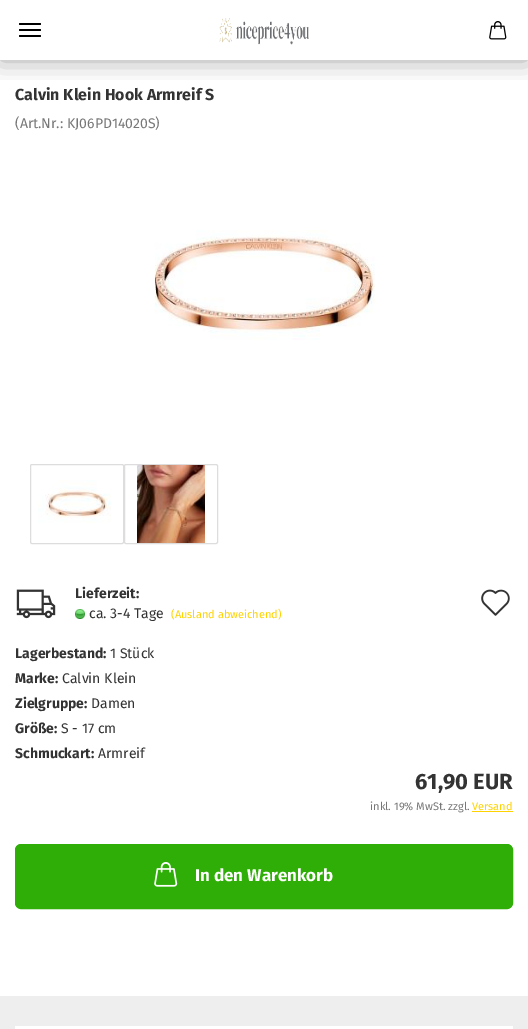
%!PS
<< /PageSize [528 1029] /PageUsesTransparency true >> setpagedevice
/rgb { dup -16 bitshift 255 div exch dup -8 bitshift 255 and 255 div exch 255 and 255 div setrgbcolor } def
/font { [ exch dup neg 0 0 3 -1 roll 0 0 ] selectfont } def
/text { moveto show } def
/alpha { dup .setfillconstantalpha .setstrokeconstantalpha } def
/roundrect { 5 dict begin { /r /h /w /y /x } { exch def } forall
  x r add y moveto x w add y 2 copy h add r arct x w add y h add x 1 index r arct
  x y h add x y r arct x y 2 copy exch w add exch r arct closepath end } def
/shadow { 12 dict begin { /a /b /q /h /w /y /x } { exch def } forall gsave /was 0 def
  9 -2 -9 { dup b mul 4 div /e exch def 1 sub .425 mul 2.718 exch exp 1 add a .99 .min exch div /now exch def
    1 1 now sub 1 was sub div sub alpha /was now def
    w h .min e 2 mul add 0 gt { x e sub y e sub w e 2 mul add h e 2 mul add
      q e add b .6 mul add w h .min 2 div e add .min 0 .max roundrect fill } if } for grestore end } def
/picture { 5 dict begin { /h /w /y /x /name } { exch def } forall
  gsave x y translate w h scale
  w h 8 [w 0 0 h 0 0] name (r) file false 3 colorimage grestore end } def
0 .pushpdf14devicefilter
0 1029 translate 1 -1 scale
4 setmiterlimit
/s1 { /FiraSans-Bold 16 font 16#333333 rgb } def
/s2 { /FiraSans-Regular 14 font 16#777777 rgb } def
/s3 { /FiraSans-Bold 14 font 16#333333 rgb } def
/s4 { /FiraSans-Regular 14 font 16#333333 rgb } def
/s5 { /FiraSans-Regular 11 font 16#FFD200 rgb } def
/s6 { /FiraSans-Bold 22 font 16#333333 rgb } def
/s7 { /FiraSans-Regular 11 font 16#777777 rgb } def
/s8 { /FiraSans-Bold 17 font 16#FFFFFF rgb } def
16#FFFFFF rgb
0 0 528 1029 rectfill
gsave
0 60 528 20 rectclip
16#000000 rgb
0 0 528 60 0 12.5 0.35 shadow
grestore
(pic1.raw) 219 18 90 27 picture
(pic2.raw) 489 21 18 19 picture
16#000000 rgb
19 29 22 2 1 roundrect fill
19 23 22 2 1 roundrect fill
19 35 22 2 1 roundrect fill
s1
(Calvin Klein Hook Armreif S) 15 100 text
s2
(\(Art.Nr.: KJ06PD14020S\)) 15 128 text
(pic3.raw) 154 230 221 110 picture
16#DDDDDD rgb
30.5 464.5 93 79 1.5 roundrect stroke
(pic4.raw) 38 480 73 43 picture
124.5 464.5 93 79 1.5 roundrect stroke
(pic5.raw) 137 465 68 78 picture
(pic6.raw) 16 589 40 30 picture
s3
(Lieferzeit:) 75 598 text
(pic7.raw) 75 609 10 10 picture
s4
(ca. 3-4 Tage) 89 618 text
s5
(\(Ausland abweichend\)) 171 618 text
s3
(Lagerbestand:) 15 658 text
s4
(1 Stück) 110 658 text
s3
(Marke:) 15 683 text
s4
(Calvin Klein) 62 683 text
s3
(Zielgruppe:) 15 708 text
s4
(Damen) 91 708 text
s3
(Größe:) 15 733 text
s4
(S - 17 cm) 61 733 text
s3
(Schmuckart:) 15 758 text
s4
(Armreif) 98 758 text
(pic8.raw) 481 589 29 27 picture
s6
(61,90 EUR) 415 789 text
s7
(inkl. 19% MwSt. zzgl.) 370 810 text
s5
(Versand) 472 810 text
472 811 41 1 rectfill
16#2EAE06 rgb
15.5 844.5 497 64 5.5 roundrect gsave fill grestore
stroke
(pic9.raw) 154 862 24 25 picture
s8
(In den Warenkorb) 195 881 text
16#EEEEEE rgb
0 996 528 33 rectfill
16#FFFFFF rgb
15 1026 498 3 rectfill
.poppdf14devicefilter showpage
